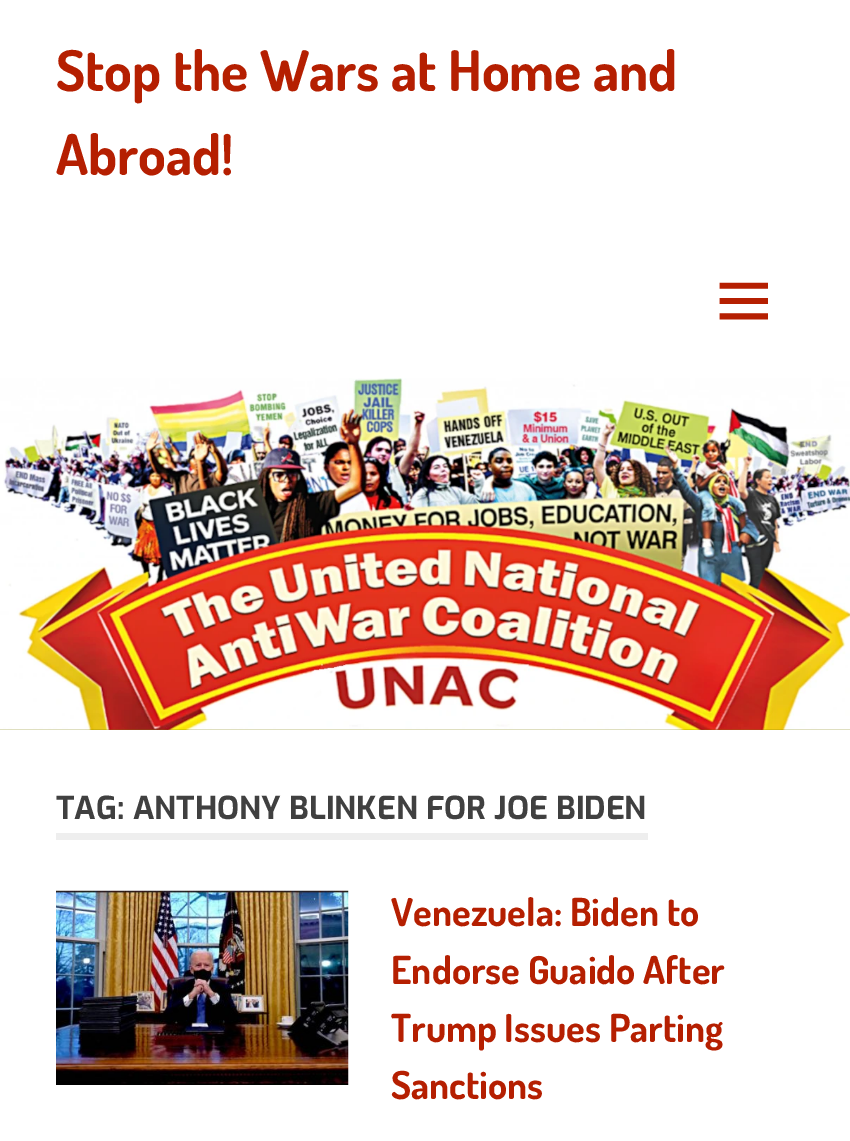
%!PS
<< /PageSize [850 1141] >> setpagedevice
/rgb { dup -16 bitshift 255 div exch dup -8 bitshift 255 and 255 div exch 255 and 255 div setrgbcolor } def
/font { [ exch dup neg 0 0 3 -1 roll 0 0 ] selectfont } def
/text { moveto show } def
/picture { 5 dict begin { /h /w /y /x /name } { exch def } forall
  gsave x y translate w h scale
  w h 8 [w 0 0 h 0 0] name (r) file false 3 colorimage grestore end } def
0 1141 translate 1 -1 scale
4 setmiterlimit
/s1 { /Dosis-ExtraLight 56 font 16#B51F01 rgb } def
/s2 { /Exo-Thin 31.5 font 16#404040 rgb } def
/s3 { /Dosis-ExtraLight 38.5 font 16#B51F01 rgb } def
16#FFFFFF rgb
0 0 850 1141 rectfill
s1
(Stop the Wars at Home and) 56 91 text
(Abroad!) 56 175 text
(pic1.raw) 719 282 49 38 picture
(pic2.raw) 0 378 850 352 picture
16#EEEEEE rgb
56 833 592 7 rectfill
s2
(TAG: ANTHONY BLINKEN FOR JOE BIDEN) 56 819 text
(pic3.raw) 56 890 293 195 picture
s3
(Venezuela: Biden to) 391 926 text
(Endorse Guaido After) 391 984 text
(Trump Issues Parting) 391 1042 text
(Sanctions) 391 1099 text
showpage
